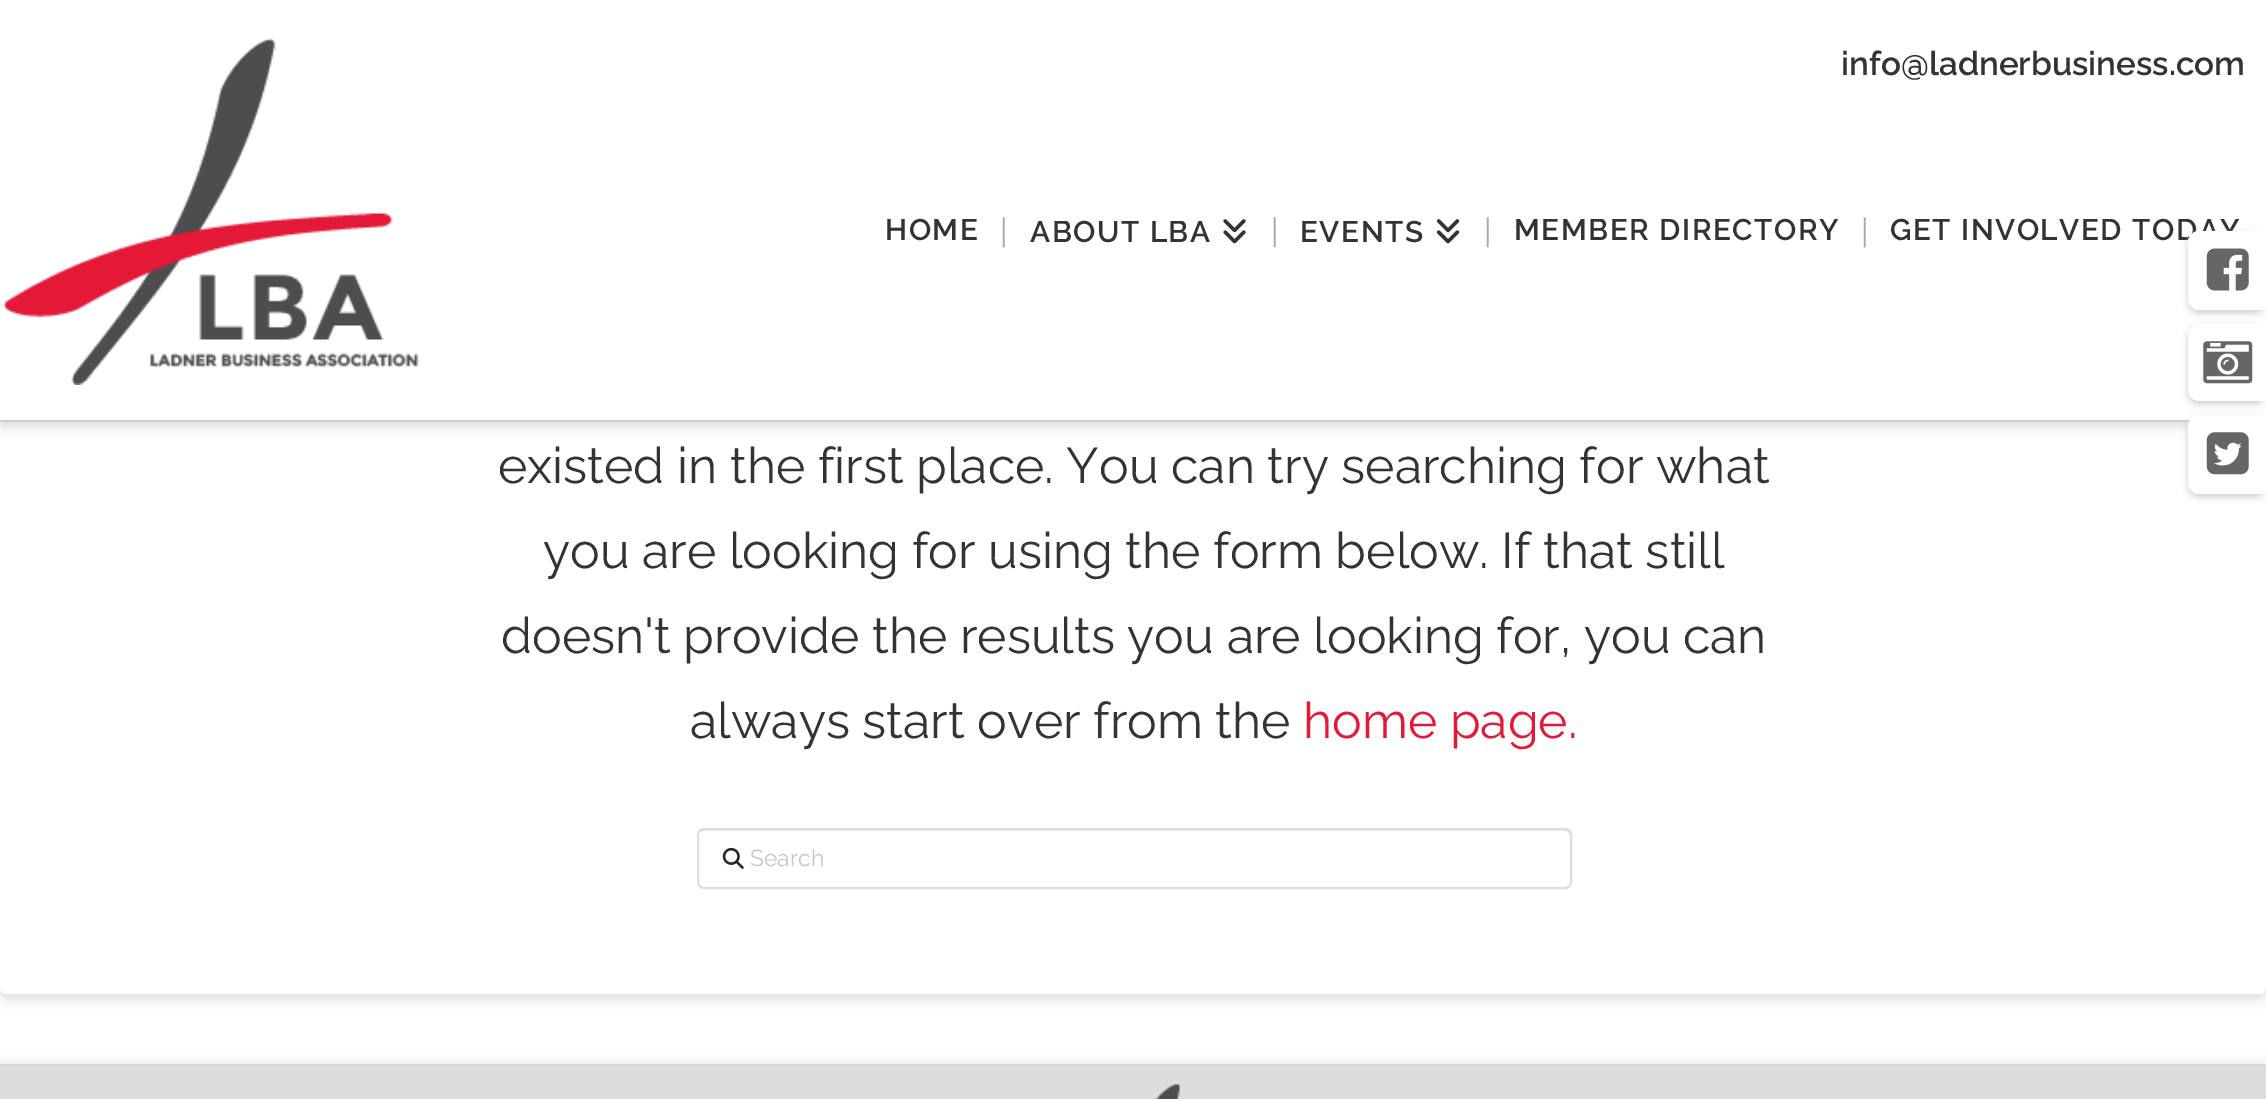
%!PS
<< /PageSize [2266 1099] /PageUsesTransparency true >> setpagedevice
/rgb { dup -16 bitshift 255 div exch dup -8 bitshift 255 and 255 div exch 255 and 255 div setrgbcolor } def
/font { [ exch dup neg 0 0 3 -1 roll 0 0 ] selectfont } def
/text { moveto show } def
/alpha { dup .setfillconstantalpha .setstrokeconstantalpha } def
/roundrect { 5 dict begin { /r /h /w /y /x } { exch def } forall
  x r add y moveto x w add y 2 copy h add r arct x w add y h add x 1 index r arct
  x y h add x y r arct x y 2 copy exch w add exch r arct closepath end } def
/shadow { 12 dict begin { /a /b /q /h /w /y /x } { exch def } forall gsave /was 0 def
  9 -2 -9 { dup b mul 4 div /e exch def 1 sub .425 mul 2.718 exch exp 1 add a .99 .min exch div /now exch def
    1 1 now sub 1 was sub div sub alpha /was now def
    w h .min e 2 mul add 0 gt { x e sub y e sub w e 2 mul add h e 2 mul add
      q e add b .6 mul add w h .min 2 div e add .min 0 .max roundrect fill } if } for grestore end } def
/picture { 5 dict begin { /h /w /y /x /name } { exch def } forall
  gsave x y translate w h scale
  w h 8 [w 0 0 h 0 0] name (r) file false 3 colorimage grestore end } def
0 .pushpdf14devicefilter
0 1099 translate 1 -1 scale
4 setmiterlimit
/s1 { /Raleway-SemiBold 33.25 font 16#333333 rgb } def
/s2 { /Raleway-Regular 33.25 font 16#AAAAAA rgb } def
/s3 { /Raleway-Regular 49.9 font 16#333333 rgb } def
/s4 { /Raleway-Regular 49.9 font 16#E41937 rgb } def
/s5 { /Raleway-Regular 23 font 16#C5C5C5 rgb } def
16#FFFFFF rgb
0 0 2266 1099 rectfill
16#000000 rgb
0 240 2266 759 7 6 0.13 shadow
16#FFFFFF rgb
0 235 2266 759 7 roundrect fill
16#000000 rgb
0 5 2266 422 0 6 0.13 shadow
16#FFFFFF rgb
0 0 2266 420 rectfill
16#CCCCCC rgb
0 420 2190 2 rectfill
(pic1.raw) 3 38 416 347 picture
s1
(info@ladnerbusiness.com) 1841 75 text
/Raleway-SemiBold 29.75 font
885 240 moveto 1.5 0 (HOME) ashow
s2
(|) 1000 243 text
/Raleway-SemiBold 29.75 font
16#333333 rgb
1030 242 moveto 1.5 0 (ABOUT LBA) ashow
(pic2.raw) 1223 219 23 25 picture
s2
(|) 1271 243 text
/Raleway-SemiBold 29.75 font
16#333333 rgb
1300 242 moveto 1.5 0 (EVENTS) ashow
(pic3.raw) 1436 219 24 25 picture
s2
(|) 1484 243 text
/Raleway-SemiBold 29.75 font
16#333333 rgb
1514 240 moveto 1.5 0 (MEMBER DIRECTORY) ashow
s2
(|) 1861 243 text
/Raleway-SemiBold 29.75 font
16#333333 rgb
1890 240 moveto 1.5 0 (GET INVOLVED TODAY) ashow
16#CCCCCC rgb
2188 235 78 78 11 3.5 1 shadow
16#FFFFFF rgb
2199 231 moveto 2266 231 lineto 2266 310 lineto 2199 310 lineto 2193 310 2188 305 2188 299 curveto 2188 242 lineto 2188 236 2193 231 2199 231 curveto closepath fill
(pic4.raw) 2206 248 43 43 picture
16#CCCCCC rgb
2188 327 78 77 11 3.5 1 shadow
16#FFFFFF rgb
2199 324 moveto 2266 324 lineto 2266 401 lineto 2199 401 lineto 2193 401 2188 396 2188 390 curveto 2188 335 lineto 2188 329 2193 324 2199 324 curveto closepath fill
(pic5.raw) 2203 341 50 43 picture
16#CCCCCC rgb
2188 418 78 79 11 3.5 1 shadow
16#FFFFFF rgb
2199 415 moveto 2266 415 lineto 2266 494 lineto 2199 494 lineto 2193 494 2188 489 2188 483 curveto 2188 426 lineto 2188 420 2193 415 2199 415 curveto closepath fill
(pic6.raw) 2206 432 43 43 picture
s3
(existed in the first place. You can try searching for what) 498 483 text
(you are looking for using the form below. If that still) 543 568 text
(doesn't provide the results you are looking for, you can) 501 653 text
(always start over from the) 690 738 text
s4
(home page.) 1303 738 text
16#ECECEC rgb
704 831 moveto 1564 831 lineto 1567 831 1570 834 1570 836 curveto 1570 835 lineto 1570 832 1568 830 1565 830 curveto 703 830 lineto 700 830 698 832 698 835 curveto 698 836 lineto 698 834 701 831 704 831 curveto closepath fill
16#DDDDDD rgb
2 setlinewidth
698 829 873 59 6 roundrect stroke
(pic7.raw) 722 847 22 22 picture
s5
(Search) 750 866 text
16#000000 rgb
0 1061 2266 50 0 4 0.07 shadow
16#DDDDDD rgb
0 1066 2266 33 rectfill
16#D4D4D4 rgb
0 1064 2266 2 rectfill
(pic8.raw) 1154 1084 26 15 picture
.poppdf14devicefilter showpage
